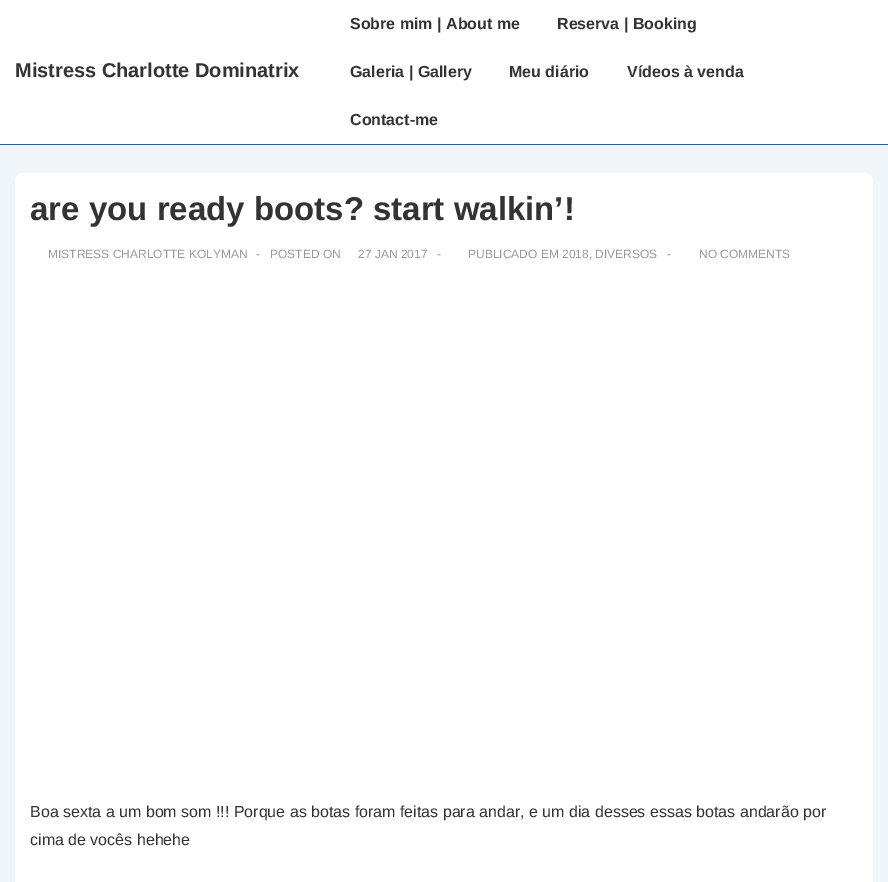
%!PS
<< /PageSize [888 882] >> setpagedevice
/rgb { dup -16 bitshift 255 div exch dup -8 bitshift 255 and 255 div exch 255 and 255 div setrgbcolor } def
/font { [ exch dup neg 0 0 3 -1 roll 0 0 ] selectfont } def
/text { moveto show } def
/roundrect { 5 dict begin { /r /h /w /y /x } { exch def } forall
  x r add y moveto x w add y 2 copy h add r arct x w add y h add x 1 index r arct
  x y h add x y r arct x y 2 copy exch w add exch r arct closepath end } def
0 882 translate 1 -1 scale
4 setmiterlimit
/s1 { /LiberationSans-Bold 20 font 16#333333 rgb } def
/s2 { /LiberationSans-Bold 16 font 16#333333 rgb } def
/s3 { /LiberationSans-Bold 33 font 16#333333 rgb } def
/s4 { /LiberationSans-Regular 12 font 16#999999 rgb } def
/s5 { /LiberationSans-Regular 16 font 16#333333 rgb } def
16#F0F5FA rgb
0 0 888 882 rectfill
16#FFFFFF rgb
0 0 888 144 rectfill
16#0066CC rgb
0 144 888 1 rectfill
s1
(Mistress Charlotte Dominatrix) 15 77 text
s2
(Sobre mim | About me) 350 29 text
(Reserva | Booking) 557 29 text
(Galeria | Gallery) 350 77 text
(Meu diário) 509 77 text
(Vídeos à venda) 627 77 text
(Contact-me) 350 125 text
16#FFFFFF rgb
15 173 858 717 8 roundrect fill
s3
(are you ready boots? start walkin’!) 30 220 text
s4
(MISTRESS CHARLOTTE KOLYMAN) 48 258 text
(-) 256 258 text
(POSTED ON) 270 258 text
(27 JAN 2017) 358 258 text
(-) 437 258 text
(PUBLICADO EM 2018, DIVERSOS) 468 258 text
(-) 667 258 text
(NO COMMENTS) 699 258 text
s5
(Boa sexta a um bom som !!! Porque as botas foram feitas para andar, e um dia desses essas botas andarão por) 30 817 text
(cima de vocês hehehe) 30 845 text
showpage
